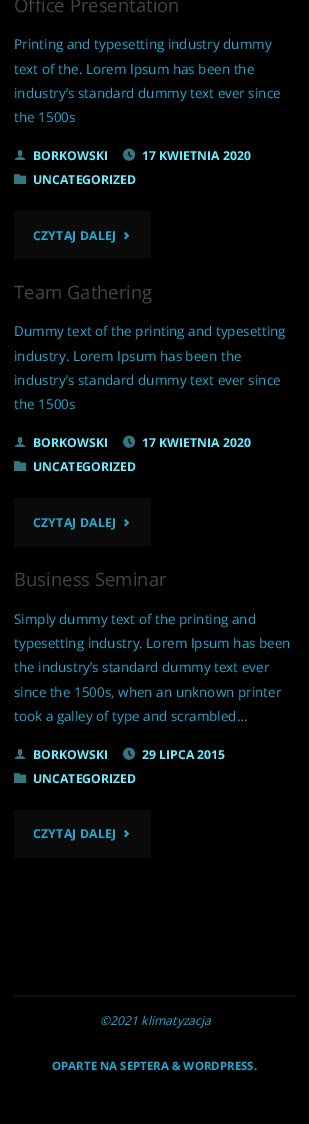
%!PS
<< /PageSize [309 1124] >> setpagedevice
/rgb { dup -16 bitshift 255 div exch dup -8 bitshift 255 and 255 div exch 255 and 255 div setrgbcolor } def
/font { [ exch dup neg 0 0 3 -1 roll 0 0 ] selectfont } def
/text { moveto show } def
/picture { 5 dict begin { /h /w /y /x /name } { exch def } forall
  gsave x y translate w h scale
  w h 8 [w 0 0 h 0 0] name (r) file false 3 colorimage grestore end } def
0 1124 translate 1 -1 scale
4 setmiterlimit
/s1 { /OpenSans-Regular 18.5 font 16#444444 rgb } def
/s2 { /OpenSans-Regular 13.5 font 16#24A7CF rgb } def
/s3 { /OpenSans-Bold 12.25 font 16#69ECFF rgb } def
/s4 { /OpenSans-Italic 12.25 font 16#24A7CF rgb } def
/s5 { /OpenSans-Bold 11.5 font 16#24A7CF rgb } def
16#000000 rgb
0 0 309 1124 rectfill
s1
(Office Presentation) 14 12 text
s2
(Printing and typesetting industry dummy) 14 49 text
(text of the. Lorem Ipsum has been the) 14 74 text
(industry’s standard dummy text ever since) 14 98 text
(the 1500s) 14 122 text
(pic1.raw) 14 150 12 10 picture
s3
(BORKOWSKI) 33 160 text
(pic2.raw) 123 148 13 13 picture
(17 KWIETNIA 2020) 142 160 text
(pic3.raw) 14 174 13 10 picture
(UNCATEGORIZED) 33 184 text
16#0A0A0A rgb
14 211 137 48 rectfill
16#24A7CF rgb
33 240 moveto 0.25 0 (CZYTAJ DALEJ) ashow
(pic4.raw) 124 232 6 8 picture
s1
(Team Gathering) 14 299 text
s2
(Dummy text of the printing and typesetting) 14 336 text
(industry. Lorem Ipsum has been the) 14 361 text
(industry’s standard dummy text ever since) 14 385 text
(the 1500s) 14 409 text
(pic1.raw) 14 437 12 10 picture
s3
(BORKOWSKI) 33 447 text
(pic2.raw) 123 435 13 13 picture
(17 KWIETNIA 2020) 142 447 text
(pic3.raw) 14 461 13 10 picture
(UNCATEGORIZED) 33 471 text
16#0A0A0A rgb
14 498 137 49 rectfill
16#24A7CF rgb
33 527 moveto 0.25 0 (CZYTAJ DALEJ) ashow
(pic4.raw) 124 519 6 8 picture
s1
(Business Seminar) 14 586 text
s2
(Simply dummy text of the printing and) 14 624 text
(typesetting industry. Lorem Ipsum has been) 14 648 text
(the industry’s standard dummy text ever) 14 672 text
(since the 1500s, when an unknown printer) 14 697 text
(took a galley of type and scrambled…) 14 721 text
(pic1.raw) 14 749 12 10 picture
s3
(BORKOWSKI) 33 759 text
(pic2.raw) 123 747 13 13 picture
(29 LIPCA 2015) 142 759 text
(pic3.raw) 14 773 13 10 picture
(UNCATEGORIZED) 33 783 text
16#0A0A0A rgb
14 810 137 48 rectfill
16#24A7CF rgb
33 838 moveto 0.25 0 (CZYTAJ DALEJ) ashow
(pic4.raw) 124 830 6 8 picture
16#0F0F0F rgb
14 995 282 2 rectfill
s4
(©2021 klimatyzacja) 100 1025 text
s5
(OPARTE NA SEPTERA & WORDPRESS.) 52 1070 text
showpage
